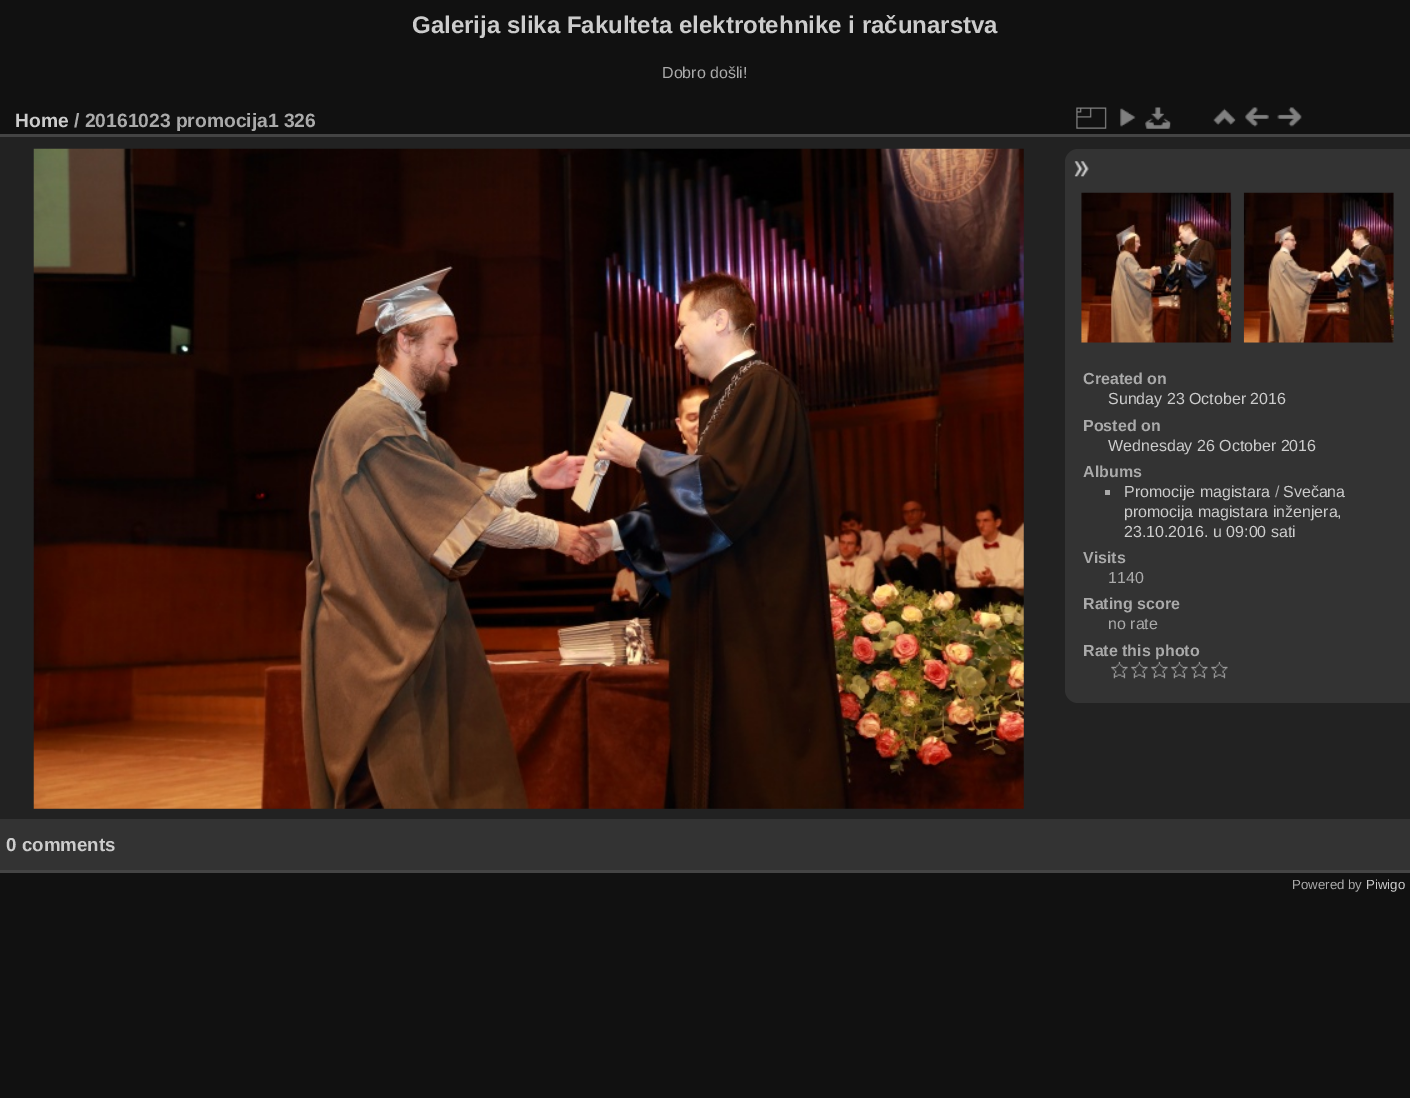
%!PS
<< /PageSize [1410 1098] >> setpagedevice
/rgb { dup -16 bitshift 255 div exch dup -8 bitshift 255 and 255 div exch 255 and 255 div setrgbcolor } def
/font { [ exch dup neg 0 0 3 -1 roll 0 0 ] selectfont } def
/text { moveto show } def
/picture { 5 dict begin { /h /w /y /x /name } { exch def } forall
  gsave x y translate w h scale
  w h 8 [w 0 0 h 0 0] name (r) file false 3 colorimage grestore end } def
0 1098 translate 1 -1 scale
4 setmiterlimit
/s1 { /LiberationSans-Bold 24 font 16#CCCCCC rgb } def
/s2 { /LiberationSans-Regular 16 font 16#AAAAAA rgb } def
/s3 { /LiberationSans-Bold 19.25 font 16#CCCCCC rgb } def
/s4 { /LiberationSans-Bold 19.25 font 16#AAAAAA rgb } def
/s5 { /LiberationSans-Bold 16 font 16#AAAAAA rgb } def
/s6 { /LiberationSans-Regular 16 font 16#CCCCCC rgb } def
/s7 { /LiberationSans-Bold 18.75 font 16#CCCCCC rgb } def
/s8 { /LiberationSans-Regular 13.25 font 16#AAAAAA rgb } def
/s9 { /LiberationSans-Regular 13.25 font 16#CCCCCC rgb } def
16#111111 rgb
0 0 1410 1098 rectfill
s1
(Galerija slika Fakulteta elektrotehnike i računarstva) 412 33 text
s2
(Dobro došli!) 662 78 text
16#222222 rgb
0 137 1410 682 rectfill
16#444444 rgb
0 870 1410 3 rectfill
0 134 1410 3 rectfill
s3
(Home) 15 127 text
s4
(/ 20161023 promocija1 326) 74 127 text
(pic1.raw) 1076 107 31 22 picture
(pic2.raw) 1120 108 16 19 picture
(pic3.raw) 1145 107 26 22 picture
(pic4.raw) 1213 108 23 17 picture
(pic5.raw) 1245 107 24 20 picture
(pic6.raw) 1277 107 25 20 picture
(pic7.raw) 33 148 991 661 picture
16#333333 rgb
1078 149 moveto 1410 149 lineto 1410 703 lineto 1078 703 lineto 1071 703 1065 697 1065 690 curveto 1065 162 lineto 1065 155 1071 149 1078 149 curveto closepath fill
(pic8.raw) 1074 161 15 16 picture
(pic9.raw) 1081 192 151 151 picture
(pic10.raw) 1243 192 151 151 picture
s5
(Created on) 1083 384 text
s6
(Sunday 23 October 2016) 1108 404 text
s5
(Posted on) 1083 431 text
s6
(Wednesday 26 October 2016) 1108 451 text
s5
(Albums) 1083 477 text
1105 490 5 5 rectfill
s6
(Promocije magistara) 1124 497 text
s2
(/) 1275 497 text
s6
(Svečana) 1283 497 text
(promocija magistara inženjera,) 1124 517 text
(23.10.2016. u 09:00 sati) 1124 537 text
s5
(Visits) 1083 563 text
s2
(1140) 1108 583 text
s5
(Rating score) 1083 609 text
s2
(no rate) 1108 629 text
s5
(Rate this photo) 1083 656 text
(pic11.raw) 1111 661 17 18 picture
(pic11.raw) 1131 661 17 18 picture
(pic11.raw) 1151 661 17 18 picture
(pic11.raw) 1171 661 17 18 picture
(pic12.raw) 1191 661 17 18 picture
(pic12.raw) 1211 661 17 18 picture
16#333333 rgb
0 819 1410 51 rectfill
s7
(0 comments) 6 851 text
s8
(Powered by) 1292 889 text
s9
(Piwigo) 1366 889 text
showpage
